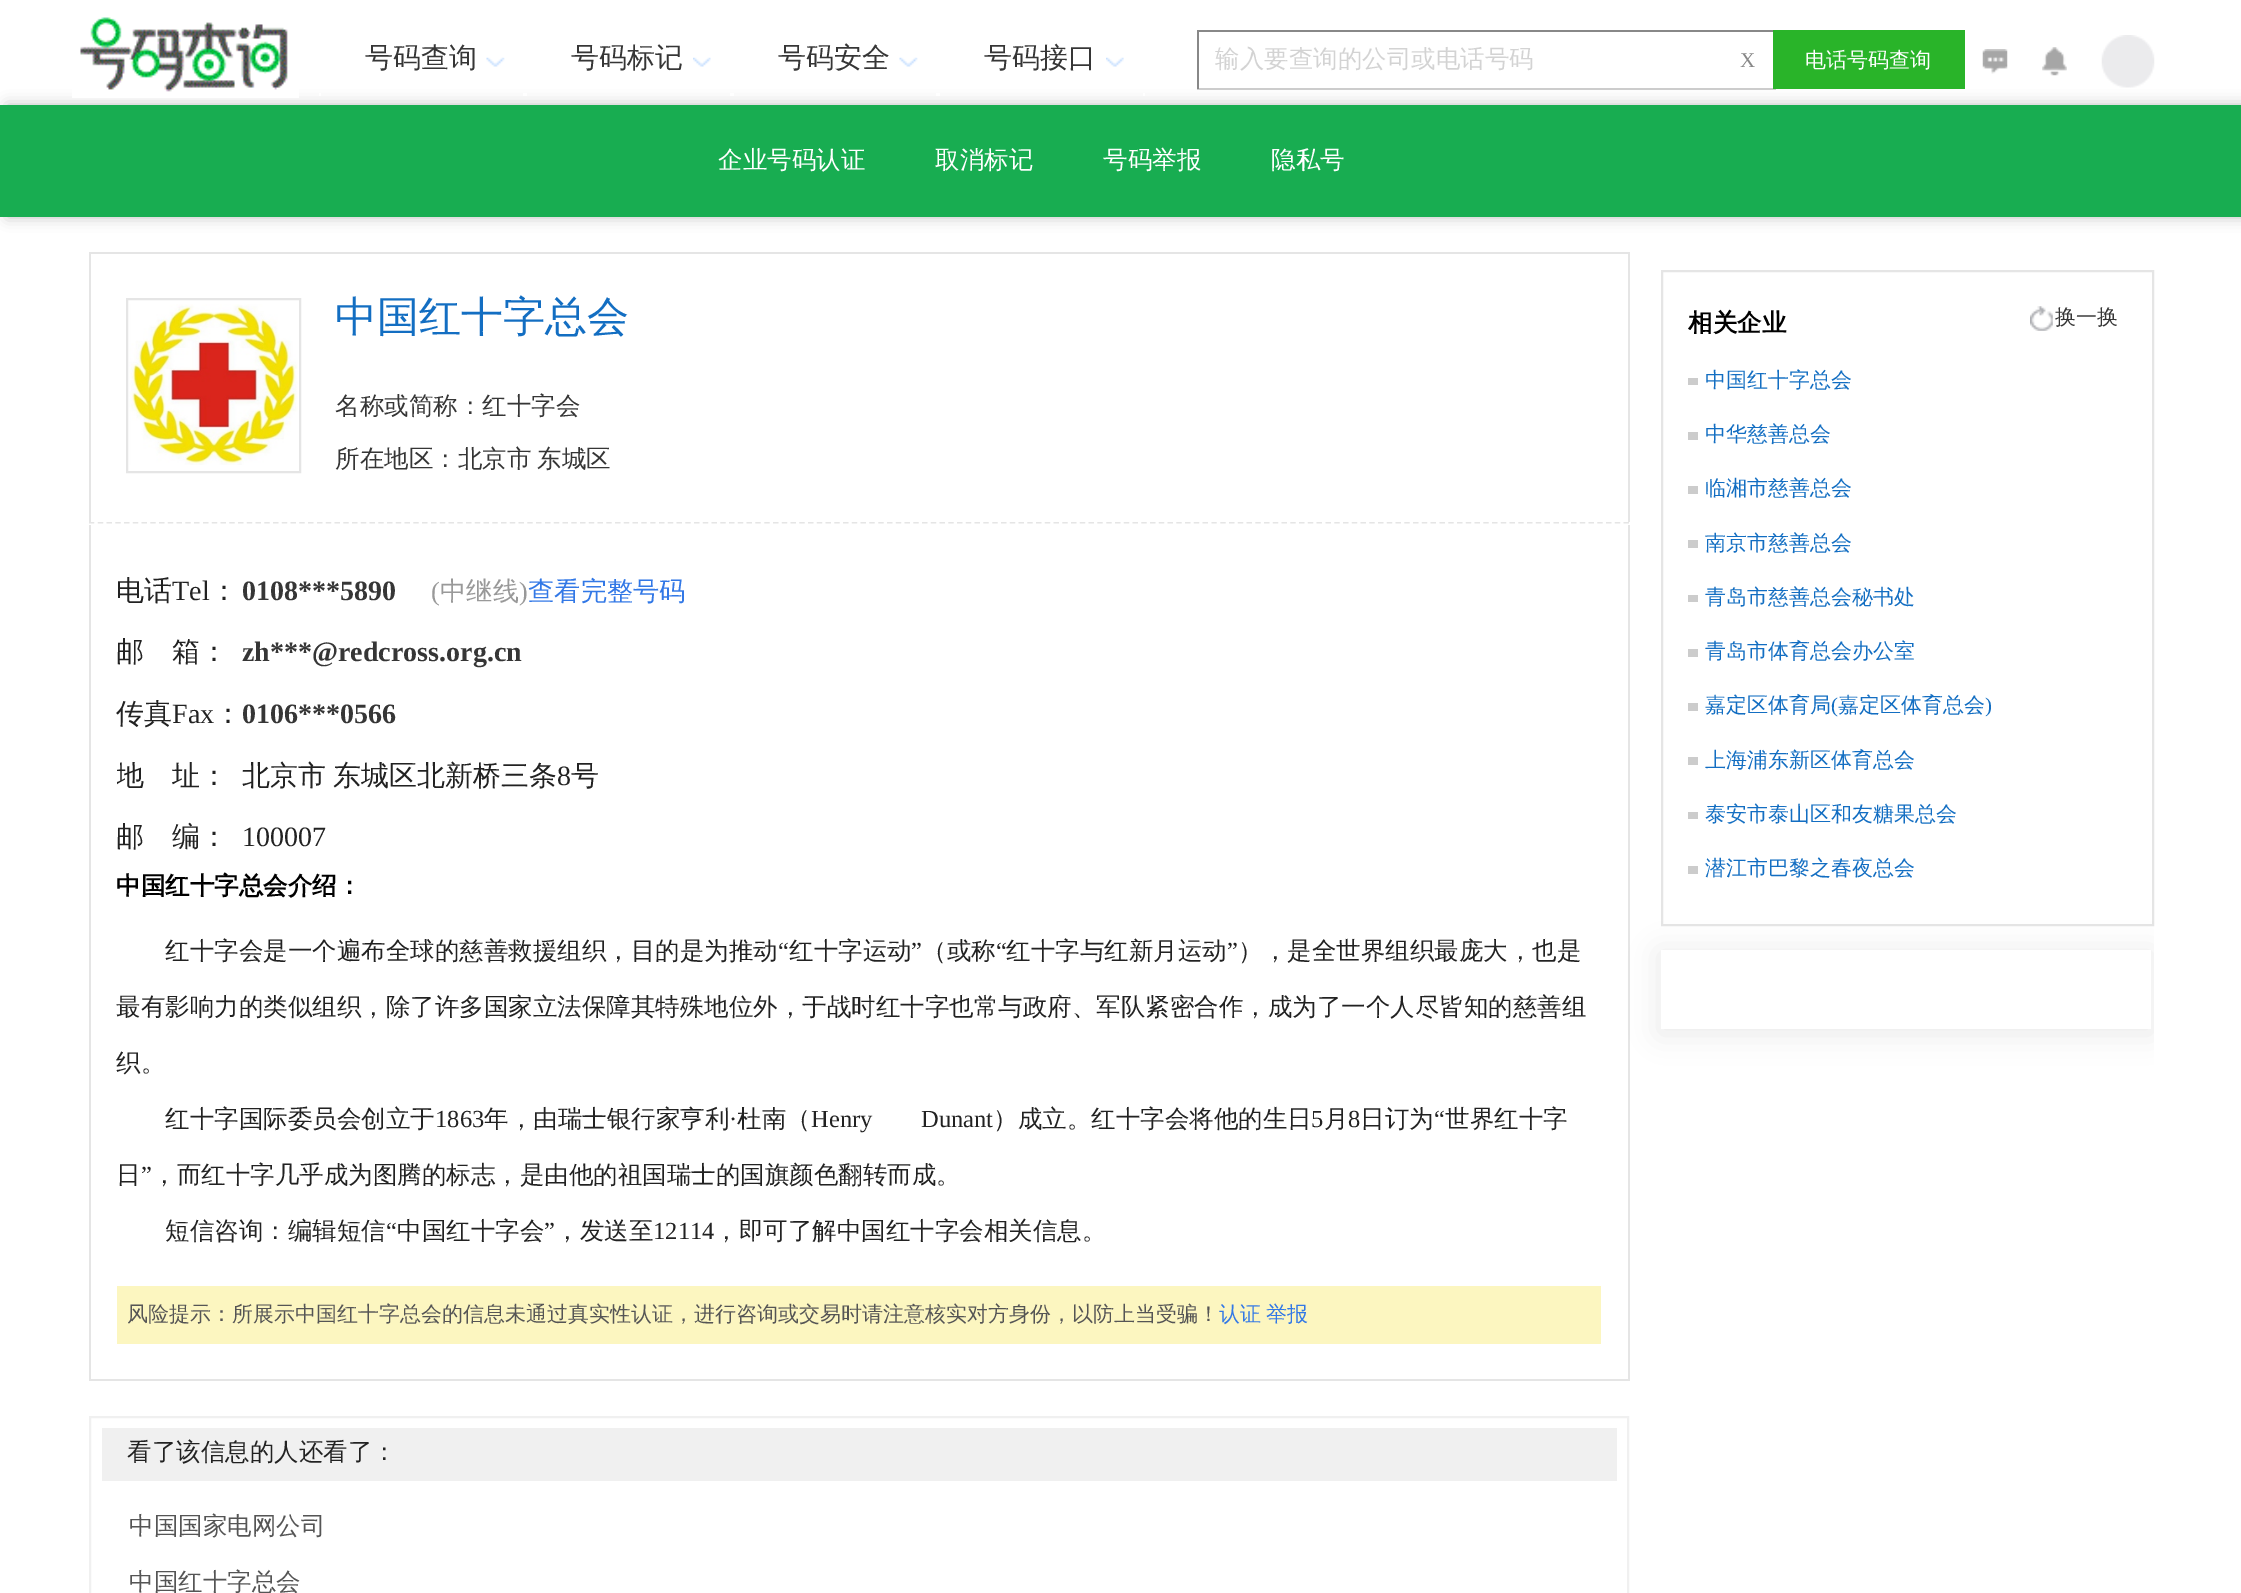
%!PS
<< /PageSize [2241 1593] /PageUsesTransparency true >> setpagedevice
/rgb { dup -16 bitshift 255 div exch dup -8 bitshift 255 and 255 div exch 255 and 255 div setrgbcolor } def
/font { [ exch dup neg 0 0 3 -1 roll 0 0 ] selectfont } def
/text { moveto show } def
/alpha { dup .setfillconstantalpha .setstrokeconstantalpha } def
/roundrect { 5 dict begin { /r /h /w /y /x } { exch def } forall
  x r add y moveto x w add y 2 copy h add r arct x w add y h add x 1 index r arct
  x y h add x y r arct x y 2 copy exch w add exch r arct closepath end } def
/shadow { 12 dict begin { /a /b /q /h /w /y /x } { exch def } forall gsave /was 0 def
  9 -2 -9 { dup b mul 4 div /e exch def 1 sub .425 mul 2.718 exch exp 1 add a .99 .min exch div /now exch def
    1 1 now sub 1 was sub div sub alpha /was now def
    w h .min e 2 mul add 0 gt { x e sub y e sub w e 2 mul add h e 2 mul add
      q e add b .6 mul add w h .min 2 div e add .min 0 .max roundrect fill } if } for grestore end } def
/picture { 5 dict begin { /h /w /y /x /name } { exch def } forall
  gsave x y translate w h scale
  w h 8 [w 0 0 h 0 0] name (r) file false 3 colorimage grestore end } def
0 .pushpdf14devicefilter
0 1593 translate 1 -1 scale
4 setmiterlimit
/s1 { /WenQuanYiZenHei-Medium 28 font 16#363636 rgb } def
/s2 { /WenQuanYiZenHei-Medium 24.5 font 16#D3D3D3 rgb } def
/s3 { /LiberationSerif-Regular 21 font 16#888888 rgb } def
/s4 { /WenQuanYiZenHei-Medium 21 font 16#FFFFFF rgb } def
/s5 { /WenQuanYiZenHei-Medium 24.5 font 16#FFFFFF rgb } def
/s6 { /WenQuanYiZenHei-Medium 42 font 16#136EC2 rgb } def
/s7 { /WenQuanYiZenHei-Medium 24.5 font 16#363636 rgb } def
/s8 { /WenQuanYiZenHei-Medium 28 font 16#222222 rgb } def
/s9 { /LiberationSerif-Regular 28 font 16#222222 rgb } def
/s10 { /LiberationSerif-Bold 28 font 16#363636 rgb } def
/s11 { /LiberationSerif-Regular 26.25 font 16#999999 rgb } def
/s12 { /WenQuanYiZenHei-Medium 26.25 font 16#999999 rgb } def
/s13 { /WenQuanYiZenHei-Medium 26.25 font 16#3278E6 rgb } def
/s14 { /WenQuanYiZenHei-Bold 24.5 font 16#000000 rgb } def
/s15 { /WenQuanYiZenHei-Medium 24.5 font 16#222222 rgb } def
/s16 { /LiberationSerif-Regular 24.5 font 16#222222 rgb } def
/s17 { /WenQuanYiZenHei-Medium 21 font 16#555555 rgb } def
/s18 { /WenQuanYiZenHei-Medium 21 font 16#3278E6 rgb } def
/s19 { /WenQuanYiZenHei-Medium 24.5 font 16#555555 rgb } def
/s20 { /WenQuanYiZenHei-Medium 21 font 16#363636 rgb } def
/s21 { /WenQuanYiZenHei-Medium 21 font 16#136EC2 rgb } def
/s22 { /LiberationSerif-Regular 21 font 16#136EC2 rgb } def
16#FFFFFF rgb
0 0 2241 1593 rectfill
16#BDBDBD rgb
7 105 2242 112 0 7 1 shadow
(pic1.raw) 72 17 227 81 picture
16#FFFFFF rgb
523 93 4 3 rectfill
319 93 2 3 rectfill
s1
(号码查询) 365 67 text
(pic2.raw) 486 57 19 10 picture
16#FFFFFF rgb
730 93 4 3 rectfill
s1
(号码标记) 571 67 text
(pic3.raw) 693 57 18 10 picture
16#FFFFFF rgb
936 93 4 3 rectfill
s1
(号码安全) 778 67 text
(pic2.raw) 899 57 19 10 picture
16#FFFFFF rgb
1143 93 2 3 rectfill
s1
(号码接口) 984 67 text
(pic4.raw) 1106 57 18 10 picture
16#888888 rgb
1197 30 579 2 rectfill
16#CCCCCC rgb
1197 88 579 2 rectfill
16#888888 rgb
1197 30 2 59 rectfill
s2
(输入要查询的公司或电话号码) 1215 67 text
s3
(X) 1740 67 text
16#29B429 rgb
1773 30 192 59 rectfill
s4
(电话号码查询) 1805 67 text
(pic5.raw) 1982 49 26 25 picture
(pic6.raw) 2042 47 25 29 picture
(pic7.raw) 2101 35 54 53 picture
16#18AD51 rgb
0 105 2241 112 rectfill
s5
(企业号码认证) 718 168 text
(取消标记) 935 168 text
(号码举报) 1103 168 text
(隐私号) 1271 168 text
16#E5E5E5 rgb
1.8 setlinewidth
[5.25 3.52] 0 setdash
89 522.5 moveto 1629 522.5 lineto stroke
16#FFFFFF rgb
91 521 1537 1 rectfill
16#E5E5E5 rgb
89 252 1540 2 rectfill
1628 252 2 270 rectfill
89 252 2 270 rectfill
2 setlinewidth
[] 0 setdash
127 299 173 173 rectstroke
(pic8.raw) 129 304 169 161 picture
s6
(中国红十字总会) 335 331 text
s7
(名称或简称：红十字会) 335 414 text
335 467 moveto -1 0 32 (所在地区：北京市 东城区) widthshow
16#E5E5E5 rgb
1628 525 2 856 rectfill
89 1379 1540 2 rectfill
89 525 2 856 rectfill
s8
(电话) 116 600 text
s9
(Tel) 172 600 text
s8
(：) 210 600 text
s10
(0108***5890) 242 600 text
s11
(\() 431 600 text
s12
(中继线) 440 600 text
s11
(\)) 519 600 text
s13
(查看完整号码) 528 600 text
s8
(邮　箱：) 116 661 text
s10
(zh***@redcross.org.cn) 242 661 text
s8
(传真) 116 723 text
s9
(Fax) 172 723 text
s8
(：) 214 723 text
s10
(0106***0566) 242 723 text
gsave
117 744 126 63 rectclip
s8
(地　址：) 116 785 text
grestore
/WenQuanYiZenHei-Medium 28 font
16#222222 rgb
242 785 moveto -1 0 32 (北京市 东城区北新桥三条) widthshow
s9
(8) 557 785 text
s8
(号) 571 785 text
(邮　编：) 116 846 text
s9
(100007) 242 846 text
s14
(中国红十字总会介绍：) 116 894 text
s15
(红十字会是一个遍布全球的慈善救援组织，目的是为推动) 165 959 text
s16
(“) 778 959 text
s15
(红十字运动) 789 959 text
s16
(”) 911 959 text
s15
(（或称) 922 959 text
s16
(“) 996 959 text
s15
(红十字与红新月运动) 1006 959 text
s16
(”) 1227 959 text
s15
(），是全世界组织最庞大，也是) 1238 959 text
(最有影响力的类似组织，除了许多国家立法保障其特殊地位外，于战时红十字也常与政府、军队紧密合作，成为了一个人尽皆知的慈善组) 116 1015 text
(织。) 116 1071 text
(红十字国际委员会创立于) 165 1127 text
s16
(1863) 435 1127 text
s15
(年，由瑞士银行家亨利) 484 1127 text
(杜南（) 737 1127 text
s16
(Henry) 811 1127 text
(Dunant) 921 1127 text
s15
(）成立。红十字会将他的生日) 993 1127 text
s16
(5) 1311 1127 text
s15
(月) 1324 1127 text
s16
(8) 1348 1127 text
s15
(日订为) 1360 1127 text
s16
(“) 1434 1127 text
s15
(世界红十字) 1445 1127 text
s16
(·) 729 1127 text
s15
(日) 116 1183 text
s16
(”) 141 1183 text
s15
(，而红十字几乎成为图腾的标志，是由他的祖国瑞士的国旗颜色翻转而成。) 152 1183 text
(短信咨询：编辑短信) 165 1239 text
s16
(“) 386 1239 text
s15
(中国红十字会) 397 1239 text
s16
(”) 544 1239 text
s15
(，发送至) 555 1239 text
s16
(12114) 653 1239 text
s15
(，即可了解中国红十字会相关信息。) 714 1239 text
16#FCF6C0 rgb
117 1286 1484 58 rectfill
s17
(风险提示：所展示中国红十字总会的信息未通过真实性认证，进行咨询或交易时请注意核实对方身份，以防上当受骗！) 127 1321 text
s18
(认证) 1219 1321 text
(举报) 1266 1321 text
16#F0F0F0 rgb
90 1417 1538 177 rectstroke
102 1428 1515 53 rectfill
s15
(看了该信息的人还看了：) 127 1460 text
s19
(中国国家电网公司) 129 1534 text
(中国红十字总会) 129 1590 text
16#E5E5E5 rgb
1662 271 491 654 rectstroke
s14
(相关企业) 1688 331 text
(pic9.raw) 2030 306 23 25 picture
s20
(换一换) 2055 324 text
16#CCCCCC rgb
1688 378 10 7 rectfill
s21
(中国红十字总会) 1705 387 text
16#CCCCCC rgb
1688 432 10 8 rectfill
s21
(中华慈善总会) 1705 441 text
16#CCCCCC rgb
1688 486 10 8 rectfill
s21
(临湘市慈善总会) 1705 495 text
16#CCCCCC rgb
1688 540 10 8 rectfill
s21
(南京市慈善总会) 1705 550 text
16#CCCCCC rgb
1688 595 10 7 rectfill
s21
(青岛市慈善总会秘书处) 1705 604 text
16#CCCCCC rgb
1688 649 10 8 rectfill
s21
(青岛市体育总会办公室) 1705 658 text
16#CCCCCC rgb
1688 703 10 8 rectfill
s21
(嘉定区体育局) 1705 712 text
s22
(\() 1831 712 text
s21
(嘉定区体育总会) 1838 712 text
s22
(\)) 1985 712 text
16#CCCCCC rgb
1688 757 10 8 rectfill
s21
(上海浦东新区体育总会) 1705 767 text
16#CCCCCC rgb
1688 812 10 7 rectfill
s21
(泰安市泰山区和友糖果总会) 1705 821 text
16#CCCCCC rgb
1688 866 10 8 rectfill
s21
(潜江市巴黎之春夜总会) 1705 875 text
gsave
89 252 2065 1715 rectclip
16#000000 rgb
1659 952 494 82 0 14 0.08 shadow
grestore
16#FFFFFF rgb
1661 950 490 79 rectfill
.poppdf14devicefilter showpage
